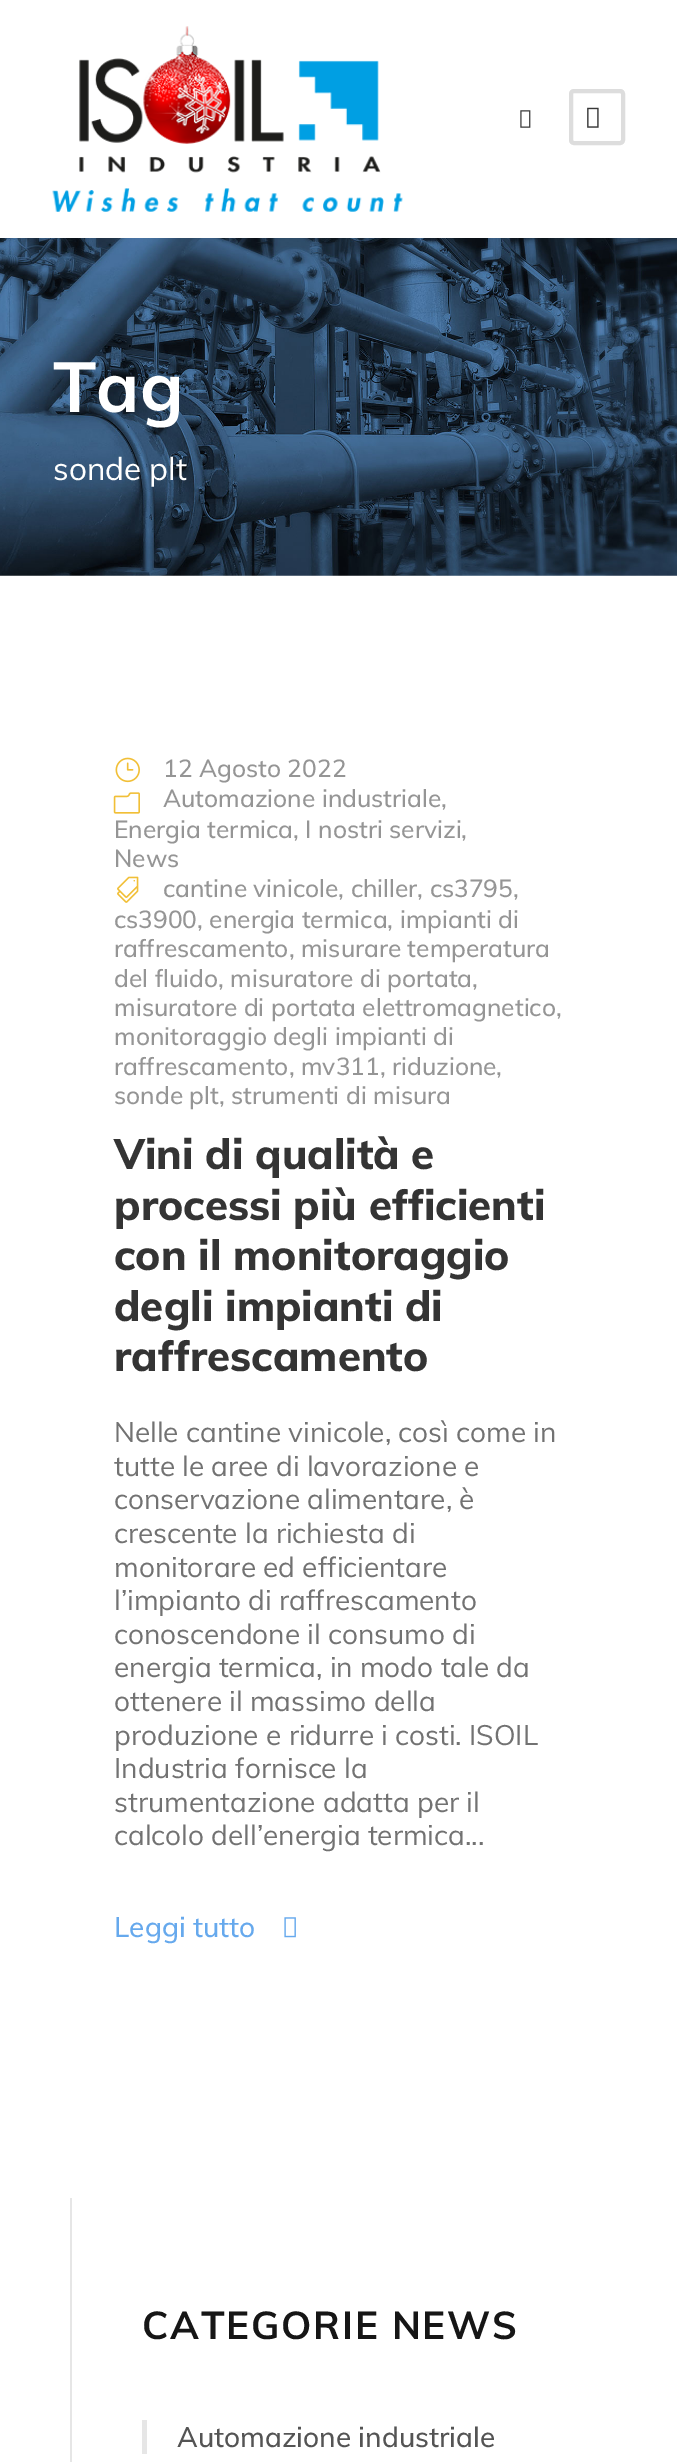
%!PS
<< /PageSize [677 2462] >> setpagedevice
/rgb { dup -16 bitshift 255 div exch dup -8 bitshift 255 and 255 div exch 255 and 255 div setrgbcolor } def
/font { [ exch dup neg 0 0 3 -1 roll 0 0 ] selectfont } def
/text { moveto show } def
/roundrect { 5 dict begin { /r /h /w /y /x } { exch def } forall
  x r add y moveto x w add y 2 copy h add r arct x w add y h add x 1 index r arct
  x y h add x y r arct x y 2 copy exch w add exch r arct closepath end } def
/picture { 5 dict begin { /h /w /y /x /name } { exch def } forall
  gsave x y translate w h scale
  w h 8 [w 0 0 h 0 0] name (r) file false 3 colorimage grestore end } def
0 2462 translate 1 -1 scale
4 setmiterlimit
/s1 { /Muli-Bold 70 font 16#FFFFFF rgb } def
/s2 { /Muli-Regular 31.5 font 16#FFFFFF rgb } def
/s3 { /Muli-Medium 24.5 font 16#959595 rgb } def
/s4 { /Muli-ExtraBold 42 font 16#343434 rgb } def
/s5 { /Muli-Regular 28 font 16#727272 rgb } def
/s6 { /Muli-Medium 28 font 16#66A9ED rgb } def
/s7 { /Muli-Medium 28 font 16#545454 rgb } def
16#FFFFFF rgb
0 0 677 2462 rectfill
(pic1.raw) 52 26 351 186 picture
(pic2.raw) 520 110 11 18 picture
16#DDDDDD rgb
4 setlinewidth
571 91 52 52 3 roundrect stroke
(pic3.raw) 587 107 12 21 picture
(pic4.raw) 0 238 677 338 picture
s1
(Tag) 53 412 text
s2
(sonde plt) 53 480 text
(pic5.raw) 115 757 25 26 picture
s3
(12 Agosto 2022) 163 777 text
(pic6.raw) 113 792 27 22 picture
(Automazione industriale,) 163 807 text
(Energia termica, I nostri servizi,) 114 838 text
(News) 114 867 text
(pic7.raw) 117 876 22 27 picture
(cantine vinicole, chiller, cs3795,) 163 897 text
(cs3900, energia termica, impianti di) 114 928 text
(raffrescamento, misurare temperatura) 114 957 text
(del fluido, misuratore di portata,) 114 987 text
(misuratore di portata elettromagnetico,) 114 1016 text
(monitoraggio degli impianti di) 114 1045 text
(raffrescamento, mv311, riduzione,) 114 1075 text
(sonde plt, strumenti di misura) 114 1104 text
s4
(Vini di qualità e) 114 1169 text
(processi più efficienti) 114 1220 text
(con il monitoraggio) 114 1270 text
(degli impianti di) 114 1321 text
(raffrescamento) 114 1371 text
s5
(Nelle cantine vinicole, così come in) 114 1442 text
(tutte le aree di lavorazione e) 114 1476 text
(conservazione alimentare, è) 114 1509 text
(crescente la richiesta di) 114 1543 text
(monitorare ed efficientare) 114 1577 text
(l’impianto di raffrescamento) 114 1610 text
(conoscendone il consumo di) 114 1644 text
(energia termica, in modo tale da) 114 1677 text
(ottenere il massimo della) 114 1711 text
(produzione e ridurre i costi. ISOIL) 114 1745 text
(Industria fornisce la) 114 1778 text
(strumentazione adatta per il) 114 1812 text
(calcolo dell’energia termica...) 114 1845 text
s6
(Leggi tutto) 114 1937 text
(pic8.raw) 284 1917 12 21 picture
16#E6E6E6 rgb
70 2198 2 264 rectfill
/Muli-Bold 38.5 font
16#161616 rgb
142 2339 moveto 1.75 0 (CATEGORIE NEWS) ashow
16#E6E6E6 rgb
142 2420 5 34 rectfill
s7
(Automazione industriale) 177 2447 text
showpage
